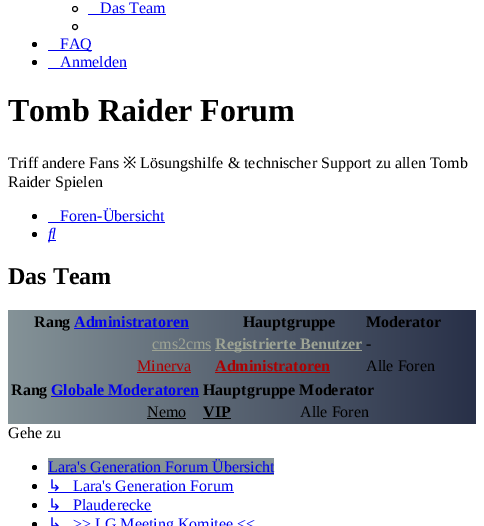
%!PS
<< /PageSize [484 526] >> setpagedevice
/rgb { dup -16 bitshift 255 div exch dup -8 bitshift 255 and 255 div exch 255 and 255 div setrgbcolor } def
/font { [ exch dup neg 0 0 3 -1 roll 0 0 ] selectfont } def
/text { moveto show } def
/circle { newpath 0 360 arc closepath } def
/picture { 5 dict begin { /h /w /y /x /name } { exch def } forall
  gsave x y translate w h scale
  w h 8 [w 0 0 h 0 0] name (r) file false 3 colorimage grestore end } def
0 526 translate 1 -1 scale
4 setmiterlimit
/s1 { /LiberationSerif-Regular 16 font 16#0000EE rgb } def
/s2 { /LiberationSerif-Bold 32 font 16#000000 rgb } def
/s3 { /LiberationSerif-Regular 16 font 16#000000 rgb } def
/s4 { /NotoSans-Regular 16 font 16#000000 rgb } def
/s5 { /LiberationSerif-Bold 24 font 16#000000 rgb } def
/s6 { /LiberationSerif-Bold 16 font 16#000000 rgb } def
/s7 { /LiberationSerif-Bold 16 font 16#0000EE rgb } def
/s8 { /LiberationSerif-Regular 16 font 16#9EA495 rgb } def
/s9 { /LiberationSerif-Bold 16 font 16#9EA495 rgb } def
/s10 { /LiberationSerif-Regular 16 font 16#AB0000 rgb } def
/s11 { /LiberationSerif-Bold 16 font 16#AB0000 rgb } def
/s12 { /DejaVuSans-Regular 16 font 16#0000EE rgb } def
16#FFFFFF rgb
0 0 484 526 rectfill
16#000000 rgb
75 9 2.5 circle stroke
s1
(Das Team) 100 13 text
88 14 78 1 rectfill
16#000000 rgb
75 27 2.5 circle stroke
34.5 44.5 2.5 circle fill
16#0000EE rgb
48 50 44 1 rectfill
(FAQ) 60 49 text
16#000000 rgb
34.5 62.5 2.5 circle fill
s1
(Anmelden) 60 67 text
48 68 79 1 rectfill
s2
(Tomb Raider Forum) 8 121 text
s3
(Triff andere Fans) 8 168 text
s4
(※) 123 168 text
s3
(Lösungshilfe & technischer Support zu allen Tomb) 140 168 text
(Raider Spielen) 8 187 text
34.5 216.5 2.5 circle fill
s1
(Foren-Übersicht) 60 221 text
48 222 117 1 rectfill
16#000000 rgb
34.5 234.5 2.5 circle fill
16#0000EE rgb
48 240 8 1 rectfill
(pic1.raw) 48 227 8 16 picture
s5
(Das Team) 8 284 text
gsave 8 310 moveto 476 310 lineto 476 378 lineto 8 378 lineto closepath clip newpath
<< /ShadingType 2 /ColorSpace /DeviceRGB /Coords [8 344 476 344] /Extend [true true] /Function << /FunctionType 2 /Domain [0 1] /C0 [0.522 0.576 0.596] /C1 [0.157 0.188 0.282] /N 1 >> >> shfill grestore
s6
(Rang) 34 327 text
s7
(Administratoren) 74 327 text
74 328 115 1 rectfill
s6
(Hauptgruppe) 243 327 text
(Moderator) 366 327 text
s8
(cms2cms) 152 349 text
152 350 59 1 rectfill
215 350 147 1 rectfill
s9
(Registrierte Benutzer) 215 349 text
s3
(-) 366 349 text
s10
(Minerva) 137 371 text
137 372 54 1 rectfill
s11
(Administratoren) 215 371 text
215 372 115 1 rectfill
s3
(Alle Foren) 366 371 text
gsave 8 378 moveto 476 378 lineto 476 424 lineto 8 424 lineto closepath clip newpath
<< /ShadingType 2 /ColorSpace /DeviceRGB /Coords [8 401 476 401] /Extend [true true] /Function << /FunctionType 2 /Domain [0 1] /C0 [0.522 0.576 0.596] /C1 [0.157 0.188 0.282] /N 1 >> >> shfill grestore
s6
(Rang) 11 395 text
s7
(Globale Moderatoren) 51 395 text
51 396 148 1 rectfill
s6
(Hauptgruppe Moderator) 203 395 text
s3
(Nemo) 147 417 text
147 418 39 1 rectfill
s6
(VIP) 203 417 text
203 418 28 1 rectfill
s3
(Alle Foren) 300 417 text
(Gehe zu) 8 438 text
34.5 467.5 2.5 circle fill
16#859398 rgb
48 458 226 17 rectfill
s1
(Lara's Generation Forum Übersicht) 48 472 text
48 473 226 1 rectfill
16#000000 rgb
34.5 486.5 2.5 circle fill
s12
(↳) 48 491 text
s1
(Lara's Generation Forum) 73 491 text
48 492 186 1 rectfill
16#000000 rgb
34.5 505.5 2.5 circle fill
s12
(↳) 48 510 text
48 511 104 1 rectfill
s1
(Plauderecke) 73 510 text
16#000000 rgb
34.5 524.5 2.5 circle fill
s12
(↳) 48 529 text
s1
(>> LG Meeting Komitee <<) 73 529 text
showpage
